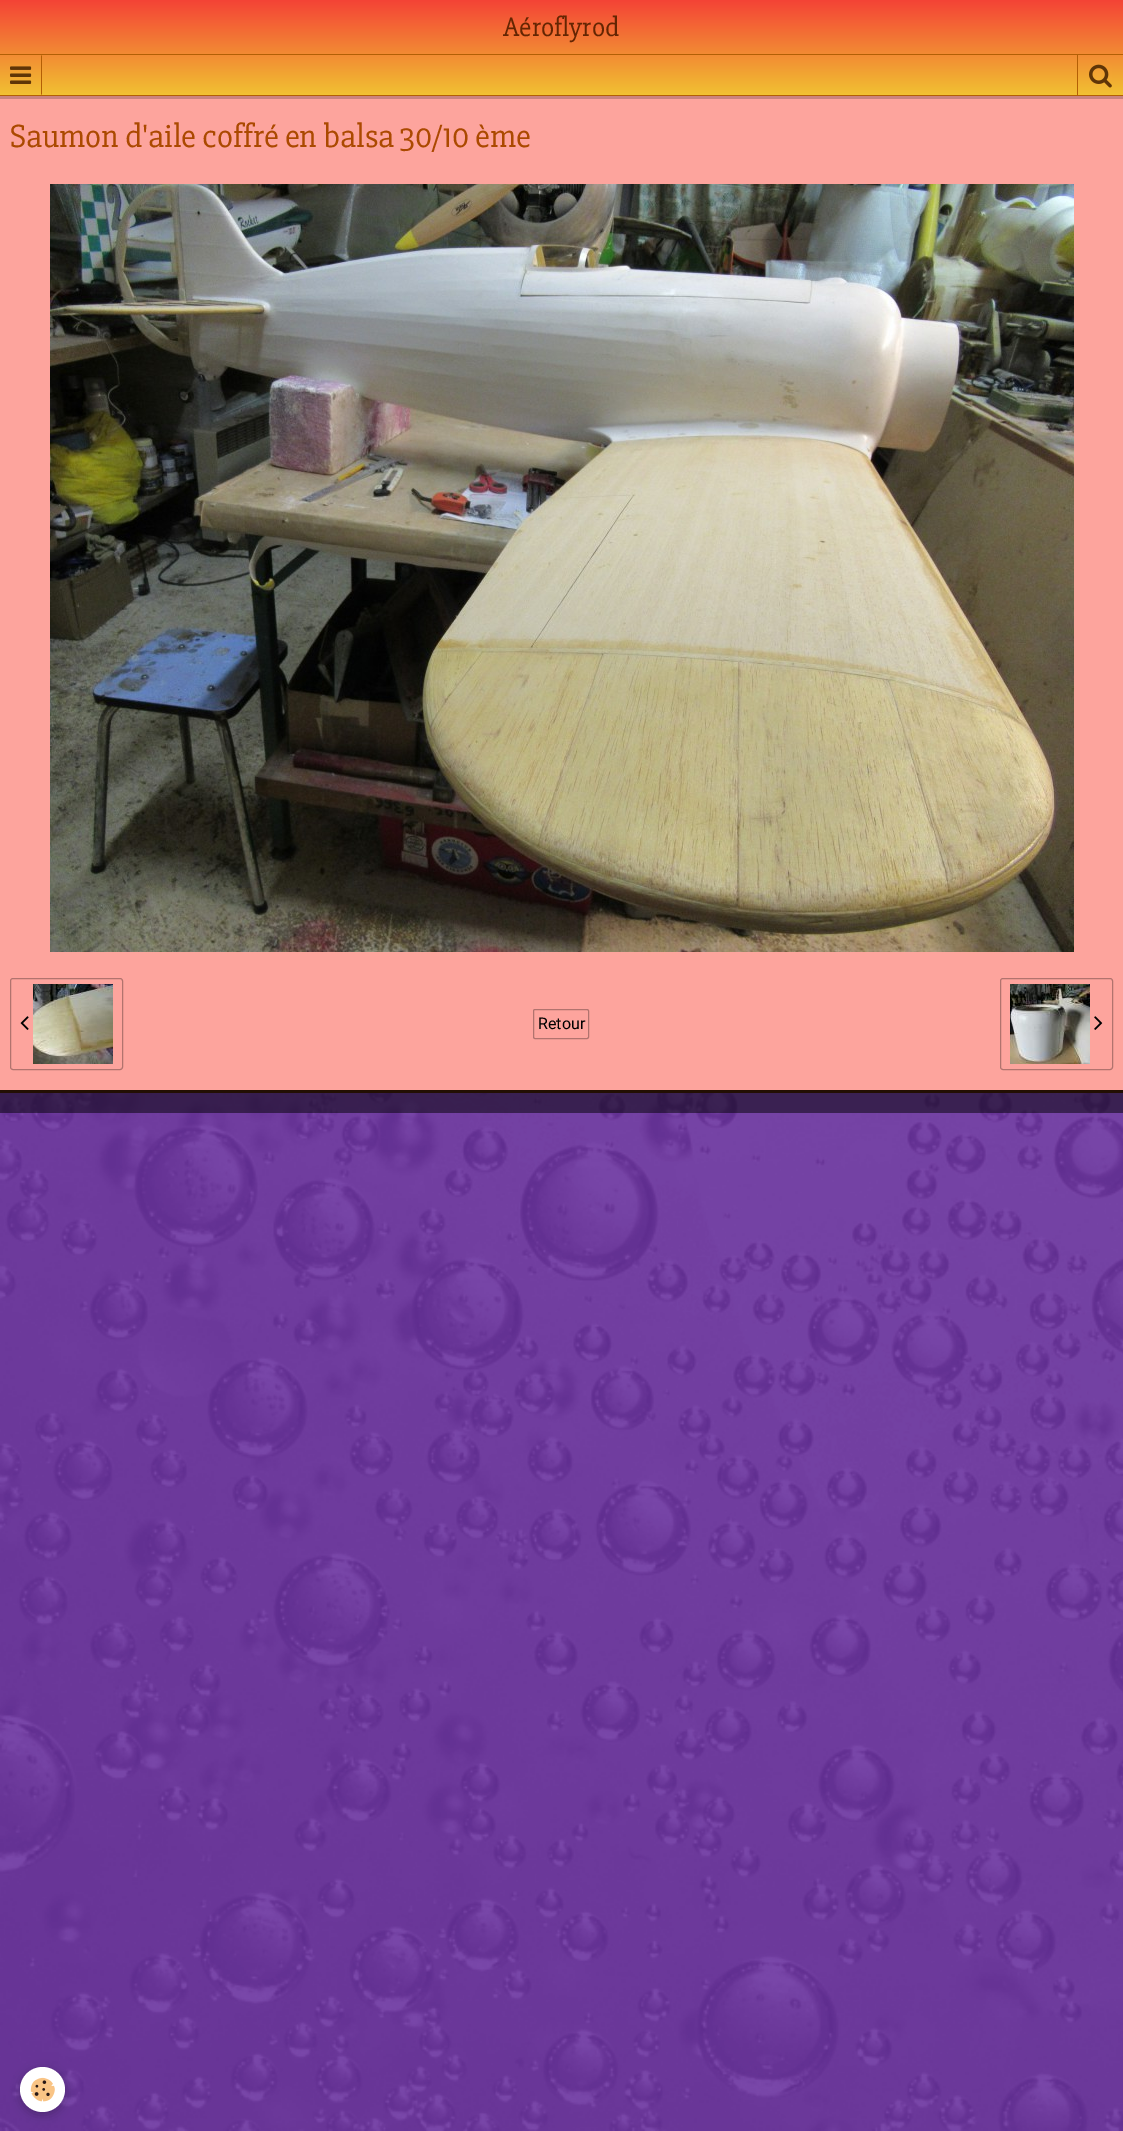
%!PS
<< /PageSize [1123 2131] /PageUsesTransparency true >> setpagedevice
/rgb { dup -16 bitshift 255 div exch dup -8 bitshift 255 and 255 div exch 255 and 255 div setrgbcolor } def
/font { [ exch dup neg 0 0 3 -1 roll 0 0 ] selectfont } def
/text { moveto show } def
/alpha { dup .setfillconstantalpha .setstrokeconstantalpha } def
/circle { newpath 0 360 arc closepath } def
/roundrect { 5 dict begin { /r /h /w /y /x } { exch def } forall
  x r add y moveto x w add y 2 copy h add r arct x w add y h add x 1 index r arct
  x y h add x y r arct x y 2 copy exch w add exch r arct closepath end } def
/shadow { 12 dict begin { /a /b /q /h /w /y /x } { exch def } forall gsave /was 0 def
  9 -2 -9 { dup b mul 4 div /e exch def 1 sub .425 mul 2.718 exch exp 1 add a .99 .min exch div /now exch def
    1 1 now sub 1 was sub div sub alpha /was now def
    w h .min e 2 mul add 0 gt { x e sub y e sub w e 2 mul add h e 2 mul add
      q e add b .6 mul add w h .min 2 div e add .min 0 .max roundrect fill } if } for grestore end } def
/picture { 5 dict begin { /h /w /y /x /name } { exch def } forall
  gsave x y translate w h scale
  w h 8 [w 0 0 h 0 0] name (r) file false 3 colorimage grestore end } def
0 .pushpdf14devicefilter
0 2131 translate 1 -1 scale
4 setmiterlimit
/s1 { /Slabo27px-Regular 27.5 font 16#642502 rgb } def
/s2 { /Slabo27px-Regular 33.25 font 16#AB4900 rgb } def
/s3 { /Roboto-Regular 16 font 16#000000 rgb } def
16#6A329F rgb
0 0 1123 2131 rectfill
(pic1.raw) 0 1093 1123 1038 picture
16#CA837E rgb
0 96 1123 3 rectfill
gsave 0 0 moveto 1123 0 lineto 1123 95 lineto 0 95 lineto closepath clip newpath
<< /ShadingType 2 /ColorSpace /DeviceRGB /Coords [562 0 562 96] /Extend [true true] /Function << /FunctionType 2 /Domain [0 1] /C0 [0.957 0.263 0.212] /C1 [0.945 0.761 0.196] /N 1 >> >> shfill grestore
s1
(Aéroflyrod) 503 36 text
16#B35F05 rgb
0 54 1123 1 rectfill
0 95 1123 1 rectfill
42 55 moveto 42 95 lineto 41 94 lineto 41 56 lineto closepath fill
(pic2.raw) 10 66 22 18 picture
1077 55 1 40 rectfill
(pic3.raw) 1089 64 23 24 picture
16#FDA49D rgb
0 99 1123 991 rectfill
s2
(Saumon d'aile coffré en balsa 30/10 ème) 10 147 text
(pic4.raw) 50 184 1024 768 picture
(pic5.raw) 20 1016 9 14 picture
(pic6.raw) 33 984 80 80 picture
16#B1736E rgb
10.5 978.5 112 91 2.5 roundrect stroke
533.5 1009.5 55 29 1.5 roundrect stroke
s3
(Retour) 538 1029 text
(pic7.raw) 1010 984 80 80 picture
(pic8.raw) 1094 1016 9 14 picture
16#B1736E rgb
1000.5 978.5 112 91 2.5 roundrect stroke
0.5 alpha
16#000000 rgb
0 1093 1123 20 rectfill
1 alpha
16#230F03 rgb
0 1090 1123 3 rectfill
16#000000 rgb
20 2070 45 45 22.5 5 0.24 shadow
16#FFFFFF rgb
42.5 2089.5 22.5 circle fill
(pic9.raw) 30 2077 25 25 picture
.poppdf14devicefilter showpage
